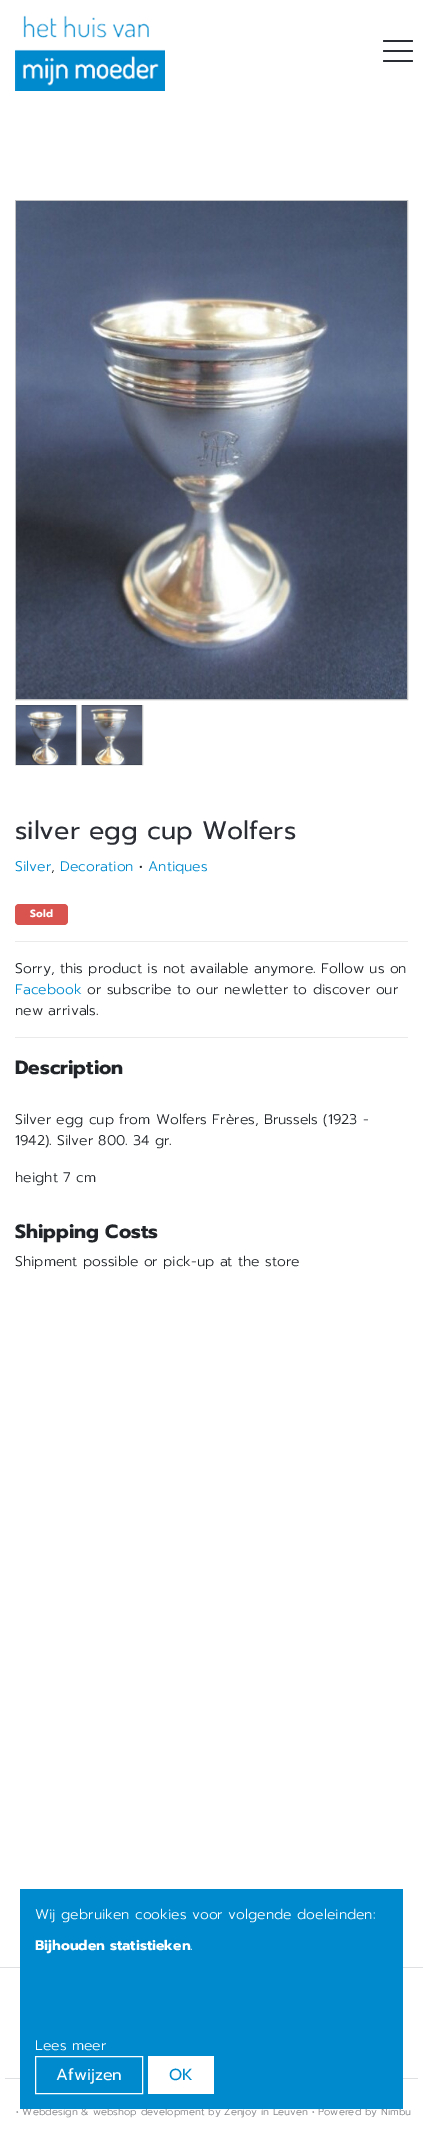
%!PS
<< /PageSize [423 2129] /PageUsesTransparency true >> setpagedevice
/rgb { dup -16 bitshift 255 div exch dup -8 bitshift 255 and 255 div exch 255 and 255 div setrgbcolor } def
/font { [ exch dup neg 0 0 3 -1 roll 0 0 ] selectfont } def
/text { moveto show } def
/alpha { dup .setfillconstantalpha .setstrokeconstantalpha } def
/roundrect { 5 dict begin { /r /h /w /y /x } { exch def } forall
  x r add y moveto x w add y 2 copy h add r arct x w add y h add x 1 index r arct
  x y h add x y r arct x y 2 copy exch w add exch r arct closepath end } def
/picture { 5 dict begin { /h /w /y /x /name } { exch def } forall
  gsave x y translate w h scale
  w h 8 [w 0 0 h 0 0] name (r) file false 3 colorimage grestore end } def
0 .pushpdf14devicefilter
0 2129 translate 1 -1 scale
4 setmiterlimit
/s1 { /Prompt-Regular 25.25 font 16#2A2D34 rgb } def
/s2 { /Prompt-Light 14 font 16#008ACE rgb } def
/s3 { /Prompt-Light 14 font 16#212529 rgb } def
/s4 { /Prompt-Bold 10.5 font 16#FFFFFF rgb } def
/s5 { /Prompt-Bold 19.25 font 16#212529 rgb } def
/s6 { /Prompt-Light 10 font 16#7F8185 rgb } def
/s7 { /Prompt-Light 14 font 16#FFFFFF rgb } def
/s8 { /Prompt-Bold 14 font 16#FFFFFF rgb } def
/s9 { /Prompt-Regular 16 font 16#FFFFFF rgb } def
/s10 { /Prompt-Regular 16 font 16#008ACE rgb } def
16#FFFFFF rgb
0 0 423 2129 rectfill
(pic1.raw) 15 15 150 76 picture
16#2A2D34 rgb
383 60 30 2 1 roundrect fill
383 40 30 2 1 roundrect fill
383 50 30 2 1 roundrect fill
16#BFC0C2 rgb
15.5 200.5 392 499 rectstroke
(pic2.raw) 16 201 391 498 picture
(pic3.raw) 16 705 60 60 picture
0.3 alpha
16#2A2D34 rgb
15.5 705.5 61 59 rectstroke
1 alpha
(pic4.raw) 82 705 60 60 picture
0.3 alpha
81.5 705.5 61 59 rectstroke
1 alpha
s1
(silver egg cup Wolfers) 15 839 text
s2
(Silver) 15 871 text
(Decoration) 60 871 text
s3
(•) 139 871 text
s2
(Antiques) 148 871 text
s3
(,) 51 871 text
16#D9534F rgb
15 904 53 21 4 roundrect fill
s4
(Sold) 30 917 text
16#EAEAEB rgb
15 941 393 1 rectfill
s3
(Sorry, this product is not available anymore. Follow us on) 15 973 text
s2
(Facebook) 15 994 text
s3
(or subscribe to our newletter to discover our) 87 994 text
(new arrivals.) 15 1015 text
16#EAEAEB rgb
15 1037 393 1 rectfill
s5
(Description) 15 1074 text
s3
(Silver egg cup from Wolfers Frères, Brussels \(1923 -) 15 1124 text
(1942\). Silver 800. 34 gr.) 15 1145 text
(height 7 cm) 15 1182 text
s5
(Shipping Costs) 15 1238 text
s3
(Shipment possible or pick-up at the store) 15 1266 text
16#DFE0E1 rgb
0 1967 423 1 rectfill
5 2078 413 1 rectfill
s6
(• Webdesign & webshop development by Zenjoy in Leuven • Powered by Nimbu) 16 2115 text
16#008ACE rgb
20 1889 383 220 rectfill
s7
(Wij gebruiken cookies voor volgende doeleinden:) 35 1919 text
s8
(Bijhouden statistieken) 35 1950 text
s7
(.) 190 1950 text
(Lees meer) 35 2050 text
35.5 2056.5 107 37 rectstroke
s9
(Afwijzen) 56 2080 text
148 2056 66 38 rectfill
s10
(OK) 169 2080 text
.poppdf14devicefilter showpage
